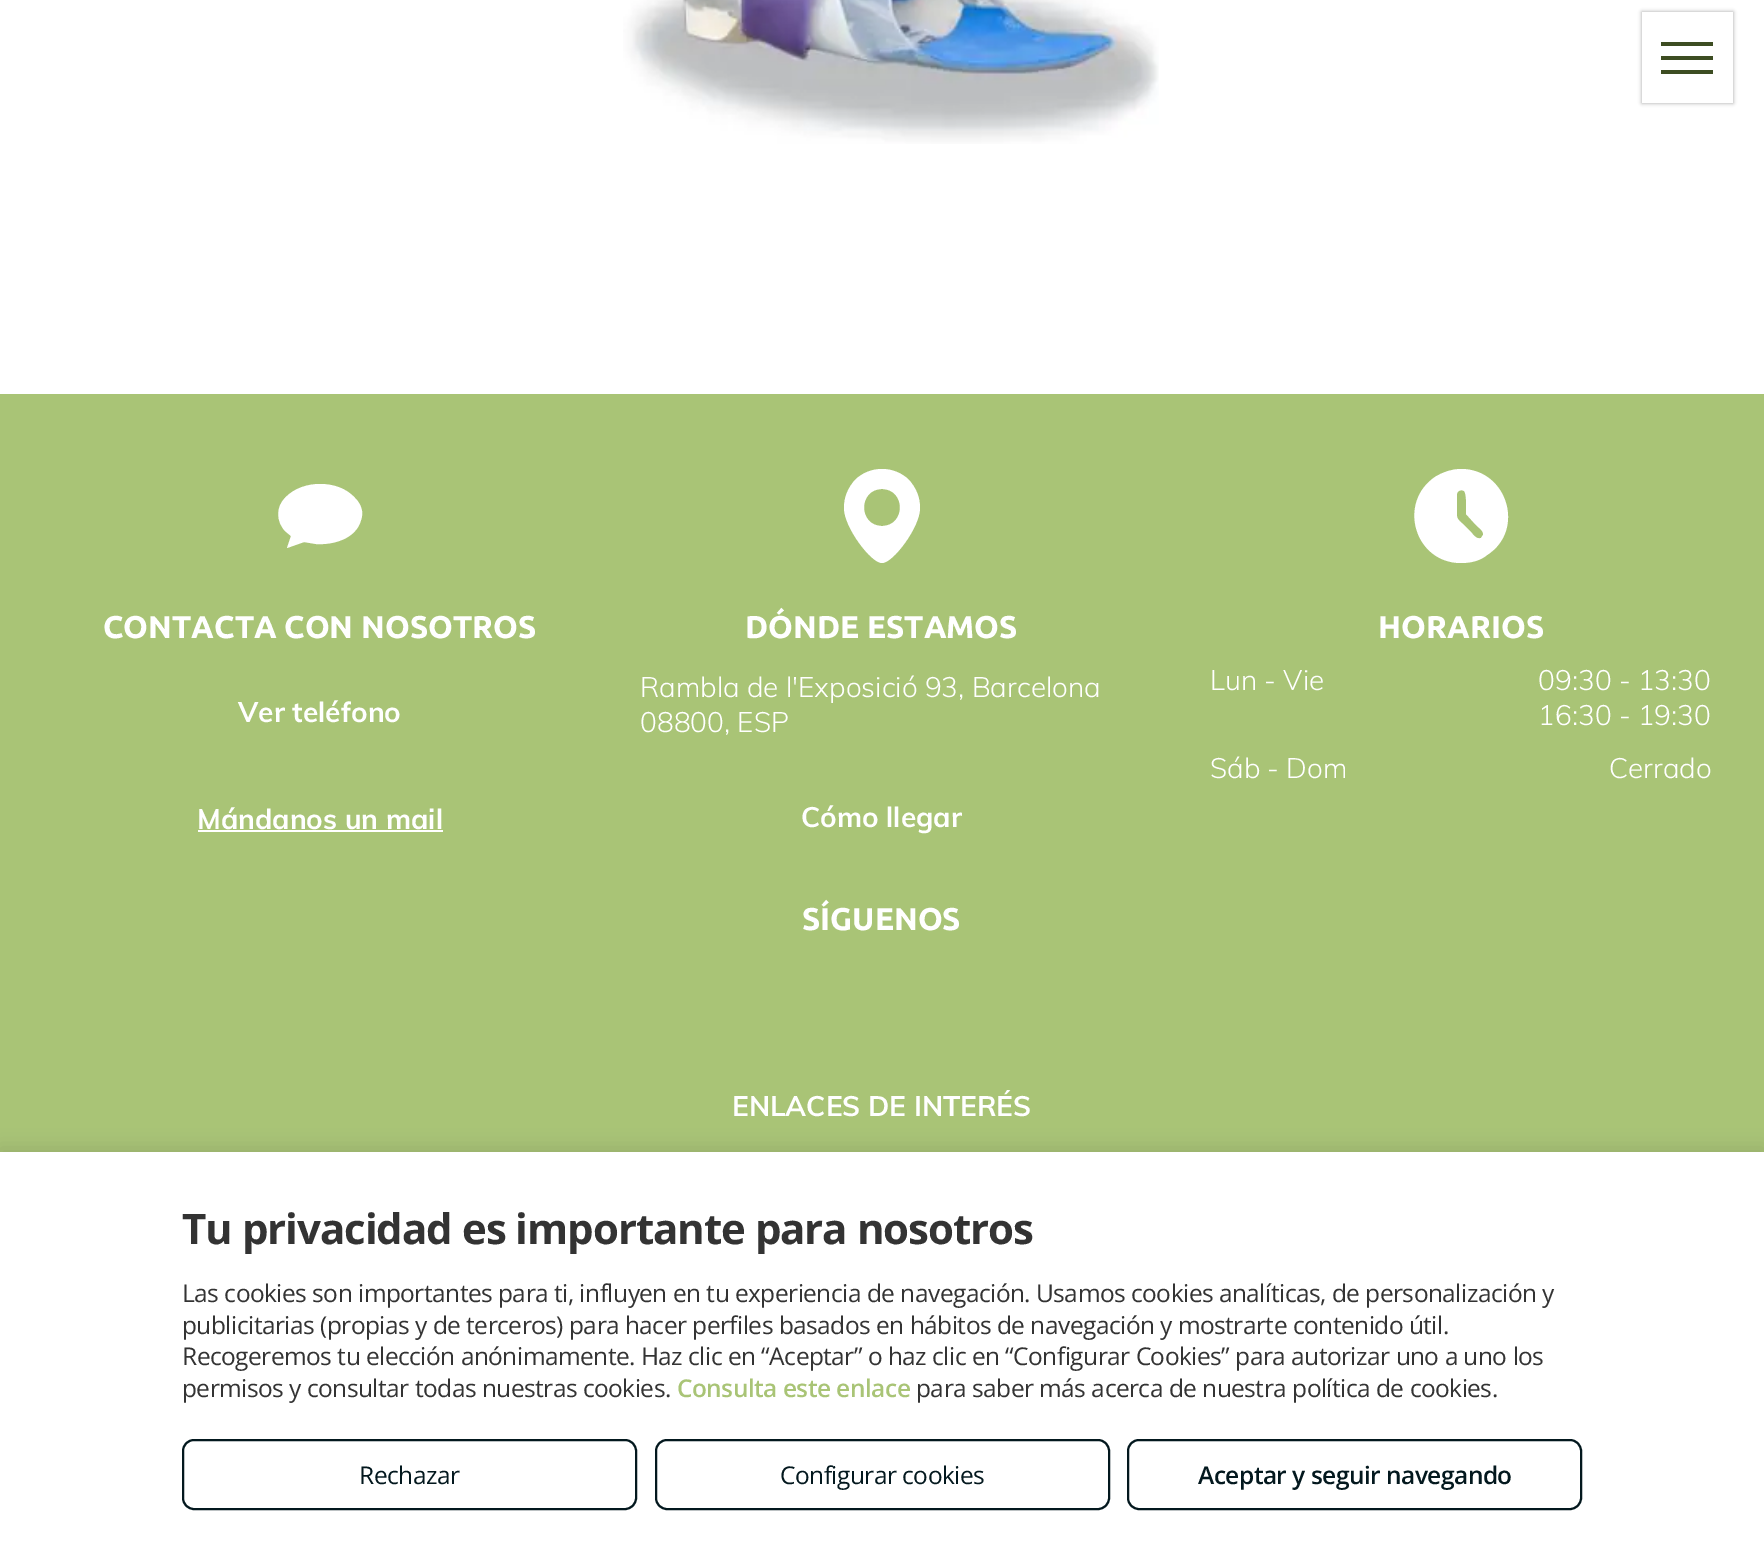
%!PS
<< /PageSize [1764 1545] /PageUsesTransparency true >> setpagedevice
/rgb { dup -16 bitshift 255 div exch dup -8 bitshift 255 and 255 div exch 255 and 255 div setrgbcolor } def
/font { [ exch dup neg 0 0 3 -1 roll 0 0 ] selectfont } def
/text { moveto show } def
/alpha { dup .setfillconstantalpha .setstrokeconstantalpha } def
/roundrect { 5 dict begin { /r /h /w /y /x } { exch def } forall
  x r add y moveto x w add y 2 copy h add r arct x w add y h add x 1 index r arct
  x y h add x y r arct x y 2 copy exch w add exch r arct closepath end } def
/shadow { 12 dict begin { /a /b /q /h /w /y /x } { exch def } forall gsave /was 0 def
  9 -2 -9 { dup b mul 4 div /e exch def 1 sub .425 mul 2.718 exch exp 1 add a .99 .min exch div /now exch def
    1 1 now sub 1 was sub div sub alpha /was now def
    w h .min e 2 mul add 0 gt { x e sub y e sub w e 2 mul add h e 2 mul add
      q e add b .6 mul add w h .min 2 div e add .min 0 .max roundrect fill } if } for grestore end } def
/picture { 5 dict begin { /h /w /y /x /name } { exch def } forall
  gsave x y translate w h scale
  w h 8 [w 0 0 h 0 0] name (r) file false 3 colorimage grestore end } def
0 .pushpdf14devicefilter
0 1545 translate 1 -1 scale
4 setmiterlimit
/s1 { /Ubuntu-Bold 31.5 font 16#FFFFFF rgb } def
/s2 { /Muli-Bold 28 font 16#FFFFFF rgb } def
/s3 { /Muli-Light 28 font 16#FFFFFF rgb } def
16#FFFFFF rgb
0 0 1764 1545 rectfill
(pic1.raw) 623 0 536 144 picture
16#000000 rgb
1642 12 91 91 0 2 0.35 shadow
16#FFFFFF rgb
1642 12 91 91 rectfill
16#3D4D22 rgb
1661 42 52 4 rectfill
1661 56 52 4 rectfill
1661 70 52 4 rectfill
16#A9C476 rgb
0 394 1764 758 rectfill
16#FFFFFF rgb
320 484 moveto 308 484 294 488 285 498 curveto 276 507 276 521 285 531 curveto 291 536 lineto 287 548 lineto 304 542 lineto 316 544 lineto 333 545 356 539 361 520 curveto 364 512 361 504 355 498 curveto 346 488 333 484 320 484 curveto closepath fill
s1
(CONTACTA CON NOSOTROS) 103 638 text
s2
(Ver teléfono) 238 722 text
(Mándanos un mail) 197 829 text
198 830 245 2 rectfill
882 469 moveto 872 469 862 473 855 480 curveto 848 488 844 497 844 508 curveto 844 527 871 563 882 563 curveto 893 563 920 527 920 508 curveto 920 497 916 488 909 480 curveto 902 473 892 469 882 469 curveto closepath 882 526 moveto 858 526 858 489 882 489 curveto 906 489 906 526 882 526 curveto closepath fill
s1
(DÓNDE ESTAMOS) 745 638 text
s3
(Rambla de l'Exposició 93, Barcelona) 640 697 text
(08800, ESP) 640 732 text
s2
(Cómo llegar) 801 827 text
s1
(SÍGUENOS) 802 930 text
1461 563 moveto 1470 563 1480 561 1487 555 curveto 1526 530 1507 469 1461 469 curveto 1452 469 1443 472 1435 477 curveto 1397 503 1415 563 1461 563 curveto closepath 1457 494 moveto 1457 491 1461 489 1464 491 curveto 1467 493 1466 510 1466 514 curveto 1476 525 lineto 1479 528 1484 531 1483 535 curveto 1481 538 lineto 1476 540 1472 533 1470 531 curveto 1464 525 lineto 1462 523 1457 520 1457 516 curveto closepath fill
(HORARIOS) 1378 638 text
s3
(Lun - Vie) 1210 690 text
(09:30 - 13:30) 1538 690 text
(16:30 - 19:30) 1538 725 text
(Sáb - Dom) 1210 778 text
(Cerrado) 1609 778 text
s2
(ENLACES DE INTERÉS) 732 1116 text
16#000000 rgb
0 1148 1764 394 0 9 0.1 shadow
16#FFFFFF rgb
0 1152 1764 393 rectfill
/OpenSans-Bold 42 font
16#333333 rgb
182 1244 moveto -1.05 0 (Tu privacidad es importante para nosotros) ashow
/OpenSans-Regular 24.5 font
182 1302 moveto -0.53 0 (Las cookies son importantes para ti, influyen en tu experiencia de navegación. Usamos cookies analíticas, de personalización y) ashow
182 1334 moveto -0.53 0 (publicitarias \(propias y de terceros\) para hacer perfiles basados en hábitos de navegación y mostrarte contenido útil.) ashow
182 1365 moveto -0.53 0 (Recogeremos tu elección anónimamente. Haz clic en “Aceptar” o haz clic en “Configurar Cookies” para autorizar uno a uno los) ashow
182 1397 moveto -0.53 0 (permisos y consultar todas nuestras cookies.) ashow
/OpenSans-SemiBold 24.5 font
16#A9C476 rgb
677 1397 moveto -0.53 0 (Consulta este enlace) ashow
/OpenSans-Regular 24.5 font
16#333333 rgb
916 1397 moveto -0.53 0 (para saber más acerca de nuestra política de cookies.) ashow
16#03181E rgb
2 setlinewidth
183 1440 453 69 11 roundrect stroke
359 1484 moveto -0.53 0 (Rechazar) ashow
656 1440 453 69 11 roundrect stroke
780 1484 moveto -0.53 0 (Configurar cookies) ashow
1128 1440 453 69 11 roundrect stroke
/OpenSans-SemiBold 24.5 font
1198 1484 moveto -0.53 0 (Aceptar y seguir navegando) ashow
.poppdf14devicefilter showpage
